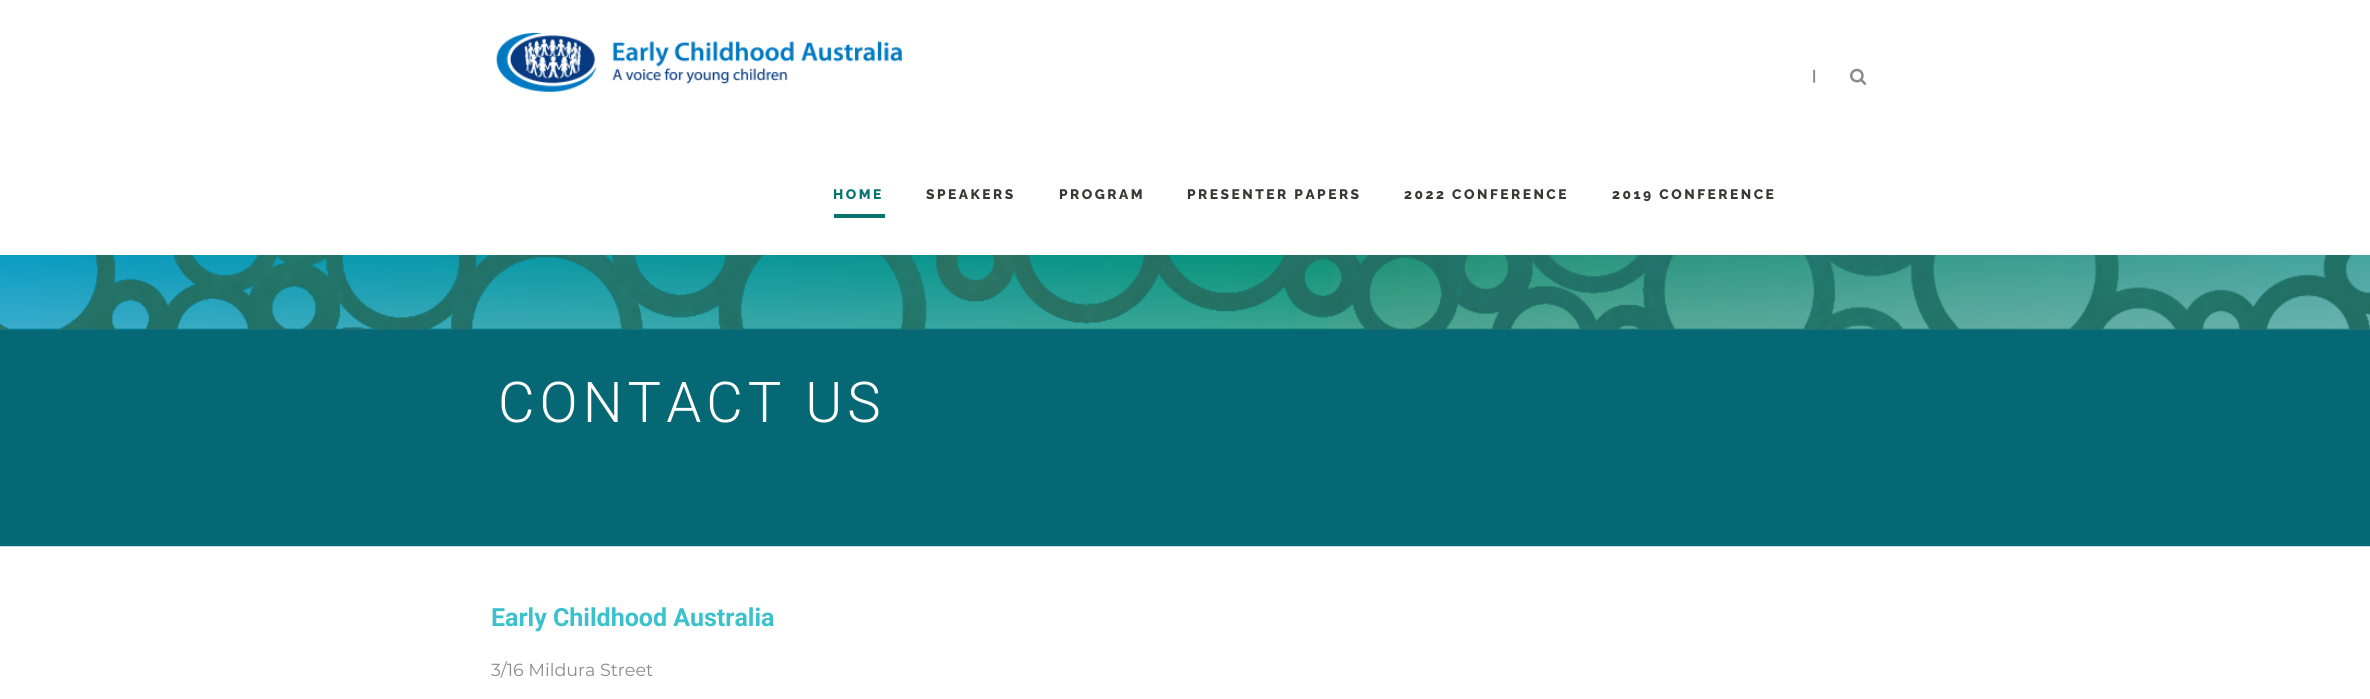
#include <cairo/cairo.h>
#include <math.h>
#include <stddef.h>

typedef struct { double x, y; const char *s; } line_t;
static cairo_t *cr;

static void rgb(unsigned color)
{
	cairo_set_source_rgb(cr, (color >> 16) / 255.0, (color >> 8 & 255) / 255.0, (color & 255) / 255.0);
}

static void tracked(double x, double y, const char *s, double letter, double word)
{
	cairo_move_to(cr, x, y);
	while (*s) {
		char ch[5] = {0};
		int n = 0;
		do ch[n++] = *s++; while ((*s & 0xC0) == 0x80);
		cairo_show_text(cr, ch);
		cairo_rel_move_to(cr, letter + word * (*ch == ' '), 0);
	}
}

static void image(const char *path, double x, double y, double w, double h)
{
	cairo_surface_t *image = cairo_image_surface_create_from_png(path);
	cairo_save(cr);
	cairo_set_source_surface(cr, image, x, y);
	cairo_rectangle(cr, x, y, w, h);
	cairo_fill(cr);
	cairo_restore(cr);
	cairo_surface_destroy(image);
}

int main(void) {
	cairo_surface_t *surface = cairo_image_surface_create(CAIRO_FORMAT_RGB24, 2370, 699);
	cr = cairo_create(surface);
	cairo_font_options_t *options = cairo_font_options_create();
	cairo_font_options_set_hint_metrics(options, CAIRO_HINT_METRICS_OFF);
	cairo_font_options_set_hint_style(options, CAIRO_HINT_STYLE_NONE);
	cairo_set_font_options(cr, options);
	cairo_set_miter_limit(cr, 4);
	rgb(0xffffff);
	cairo_paint(cr);
	image("img/1.png", 496, 32, 406, 60);
	image("img/2.png", 1850, 68, 17, 17);
	rgb(0x087472);
	cairo_rectangle(cr, 834, 214, 51, 4);
	cairo_fill(cr);
	image("img/3.png", 0, 255, 2370, 292);
	cairo_select_font_face(cr, "Montserrat", CAIRO_FONT_SLANT_NORMAL, CAIRO_FONT_WEIGHT_BOLD);
	cairo_set_font_size(cr, 13.75);
	rgb(0x8b8b8b);
	cairo_move_to(cr, 1812, 80);
	cairo_show_text(cr, "|");
	cairo_select_font_face(cr, "Raleway ExtraBold", CAIRO_FONT_SLANT_NORMAL, CAIRO_FONT_WEIGHT_NORMAL);
	rgb(0x087472);
	tracked(833, 199, "HOME", 2.5, 0);
	rgb(0x363936);
	{
		static const line_t items[] = {
			{926, 199, "SPEAKERS"},
			{1059, 199, "PROGRAM"},
			{1187, 199, "PRESENTER PAPERS"},
			{1404, 199, "2022 CONFERENCE"},
			{1612, 199, "2019 CONFERENCE"},
		};
		for (size_t i = 0; i < sizeof items / sizeof *items; i++) {
			tracked(items[i].x, items[i].y, items[i].s, 2.5, 0);
		}
	}
	cairo_select_font_face(cr, "Roboto Light", CAIRO_FONT_SLANT_NORMAL, CAIRO_FONT_WEIGHT_NORMAL);
	cairo_set_font_size(cr, 56.25);
	rgb(0xffffff);
	tracked(498, 422, "CONTACT US", 5, 0);
	cairo_select_font_face(cr, "Roboto", CAIRO_FONT_SLANT_NORMAL, CAIRO_FONT_WEIGHT_BOLD);
	cairo_set_font_size(cr, 25);
	rgb(0x3ac1cc);
	cairo_move_to(cr, 491, 626);
	cairo_show_text(cr, "Early Childhood Australia");
	cairo_select_font_face(cr, "Montserrat", CAIRO_FONT_SLANT_NORMAL, CAIRO_FONT_WEIGHT_NORMAL);
	cairo_set_font_size(cr, 17.5);
	rgb(0x8b8b8b);
	cairo_move_to(cr, 491, 676);
	cairo_show_text(cr, "3/16 Mildura Street");
	cairo_surface_write_to_png(surface, "page.png");
	cairo_font_options_destroy(options);
	cairo_destroy(cr);
	cairo_surface_destroy(surface);
	return 0;
}
